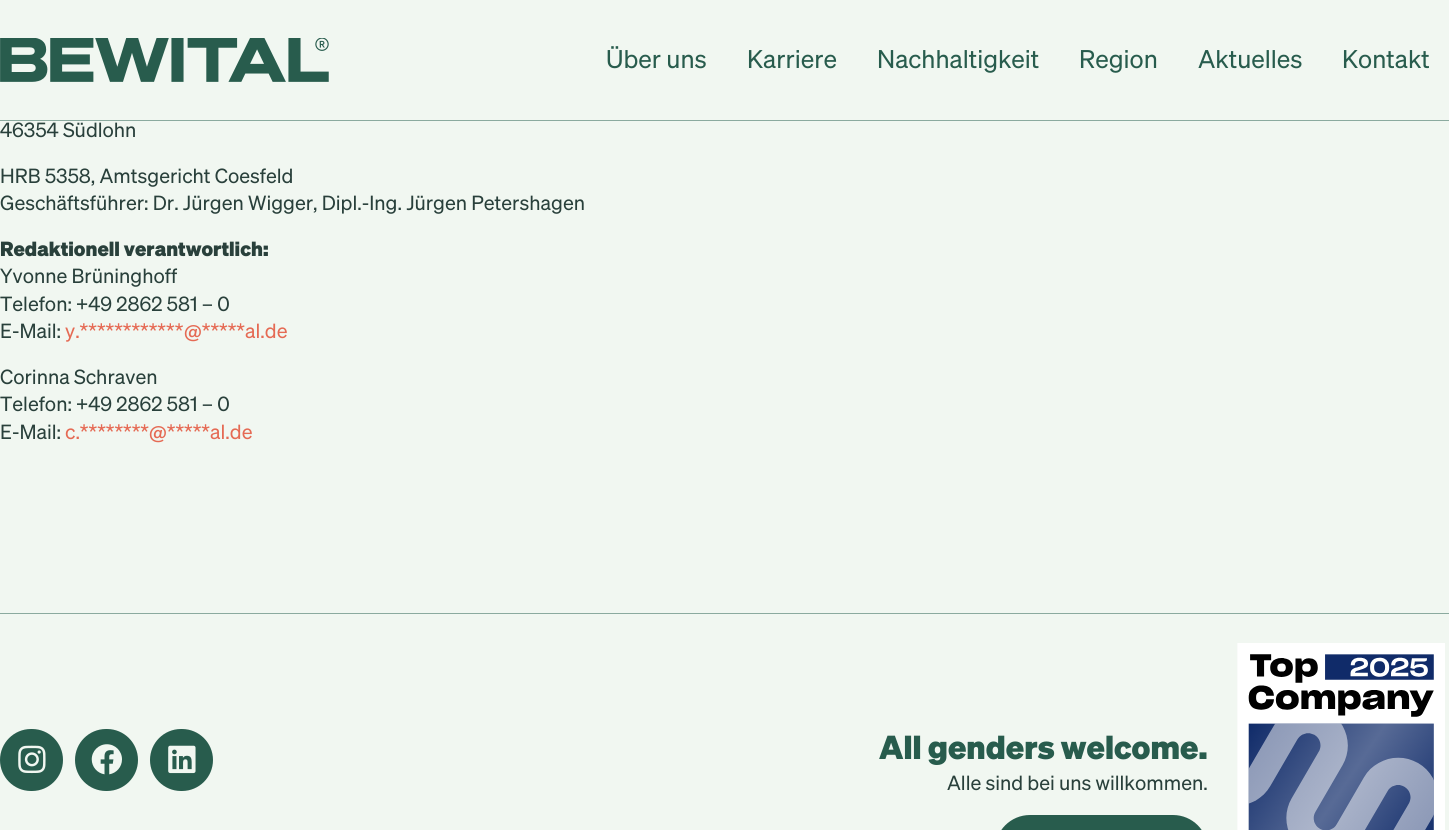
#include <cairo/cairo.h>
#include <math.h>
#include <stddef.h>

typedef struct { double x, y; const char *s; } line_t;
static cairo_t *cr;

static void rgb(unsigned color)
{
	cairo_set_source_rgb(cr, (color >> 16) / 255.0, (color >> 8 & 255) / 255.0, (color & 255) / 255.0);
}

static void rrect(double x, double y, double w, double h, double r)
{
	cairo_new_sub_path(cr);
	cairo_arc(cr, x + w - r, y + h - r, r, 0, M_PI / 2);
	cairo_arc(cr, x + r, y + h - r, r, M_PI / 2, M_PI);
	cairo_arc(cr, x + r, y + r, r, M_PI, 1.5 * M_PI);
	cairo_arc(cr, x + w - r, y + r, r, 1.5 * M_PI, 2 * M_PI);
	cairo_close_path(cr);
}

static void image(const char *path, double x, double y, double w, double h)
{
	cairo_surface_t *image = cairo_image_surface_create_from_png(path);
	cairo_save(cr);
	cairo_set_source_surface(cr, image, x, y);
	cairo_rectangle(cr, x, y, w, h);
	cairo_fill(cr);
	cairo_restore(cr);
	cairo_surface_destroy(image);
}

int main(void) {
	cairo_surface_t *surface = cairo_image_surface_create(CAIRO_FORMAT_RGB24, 1449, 830);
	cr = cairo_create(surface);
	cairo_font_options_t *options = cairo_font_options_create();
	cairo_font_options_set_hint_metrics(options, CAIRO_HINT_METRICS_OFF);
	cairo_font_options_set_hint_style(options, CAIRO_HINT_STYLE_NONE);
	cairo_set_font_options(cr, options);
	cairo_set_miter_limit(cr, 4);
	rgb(0xf1f7f1);
	cairo_paint(cr);
	rgb(0x8baa9f);
	cairo_rectangle(cr, 0, 120, 1449, 1);
	cairo_fill(cr);
	image("img/1.png", 0, 38, 329, 44);
	cairo_rectangle(cr, 0, 613, 1449, 1);
	cairo_fill(cr);
	rgb(0x285c4d);
	rrect(0, 729, 63, 62, 31);
	cairo_fill(cr);
	image("img/2.png", 18, 745, 28, 29);
	rrect(75, 729, 63, 62, 31);
	cairo_fill(cr);
	image("img/3.png", 91, 744, 31, 31);
	rrect(150, 729, 63, 62, 31);
	cairo_fill(cr);
	image("img/4.png", 168, 745, 28, 29);
	rrect(996.5, 816.5, 210, 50, 33.5);
	cairo_fill_preserve(cr);
	cairo_set_line_width(cr, 3);
	cairo_stroke(cr);
	image("img/5.png", 1237, 643, 208, 187);
	cairo_select_font_face(cr, "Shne", CAIRO_FONT_SLANT_NORMAL, CAIRO_FONT_WEIGHT_NORMAL);
	cairo_set_font_size(cr, 25);
	{
		static const line_t items[] = {
			{606, 68, "Über uns"},
			{747, 68, "Karriere"},
			{877, 68, "Nachhaltigkeit"},
			{1079, 68, "Region"},
			{1198, 68, "Aktuelles"},
			{1342, 68, "Kontakt"},
		};
		for (size_t i = 0; i < sizeof items / sizeof *items; i++) {
			cairo_move_to(cr, items[i].x, items[i].y);
			cairo_show_text(cr, items[i].s);
		}
	}
	cairo_set_font_size(cr, 20);
	rgb(0x29403b);
	{
		static const line_t items[] = {
			{0, 137, "46354 Südlohn"},
			{0, 183, "HRB 5358, Amtsgericht Coesfeld"},
			{0, 210, "Geschäftsführer: Dr. Jürgen Wigger, Dipl.-Ing. Jürgen Petershagen"},
		};
		for (size_t i = 0; i < sizeof items / sizeof *items; i++) {
			cairo_move_to(cr, items[i].x, items[i].y);
			cairo_show_text(cr, items[i].s);
		}
	}
	cairo_select_font_face(cr, "Shne ExtraBold", CAIRO_FONT_SLANT_NORMAL, CAIRO_FONT_WEIGHT_NORMAL);
	cairo_move_to(cr, 0, 256);
	cairo_show_text(cr, "Redaktionell verantwortlich:");
	cairo_select_font_face(cr, "Shne", CAIRO_FONT_SLANT_NORMAL, CAIRO_FONT_WEIGHT_NORMAL);
	{
		static const line_t items[] = {
			{0, 283, "Yvonne Brüninghoff"},
			{0, 311, "Telefon: +49 2862 581 – 0"},
			{0, 338, "E-Mail:"},
		};
		for (size_t i = 0; i < sizeof items / sizeof *items; i++) {
			cairo_move_to(cr, items[i].x, items[i].y);
			cairo_show_text(cr, items[i].s);
		}
	}
	rgb(0xe56a54);
	{
		static const line_t items[] = {
			{65, 338, "y.************"},
			{184, 338, "@*****"},
			{245, 338, "al.de"},
		};
		for (size_t i = 0; i < sizeof items / sizeof *items; i++) {
			cairo_move_to(cr, items[i].x, items[i].y);
			cairo_show_text(cr, items[i].s);
		}
	}
	rgb(0x29403b);
	{
		static const line_t items[] = {
			{0, 384, "Corinna Schraven"},
			{0, 411, "Telefon: +49 2862 581 – 0"},
			{0, 439, "E-Mail:"},
		};
		for (size_t i = 0; i < sizeof items / sizeof *items; i++) {
			cairo_move_to(cr, items[i].x, items[i].y);
			cairo_show_text(cr, items[i].s);
		}
	}
	rgb(0xe56a54);
	{
		static const line_t items[] = {
			{65, 439, "c.********"},
			{149, 439, "@*****"},
			{210, 439, "al.de"},
		};
		for (size_t i = 0; i < sizeof items / sizeof *items; i++) {
			cairo_move_to(cr, items[i].x, items[i].y);
			cairo_show_text(cr, items[i].s);
		}
	}
	cairo_select_font_face(cr, "Shne ExtraBold", CAIRO_FONT_SLANT_NORMAL, CAIRO_FONT_WEIGHT_NORMAL);
	cairo_set_font_size(cr, 32.5);
	rgb(0x285c4d);
	cairo_move_to(cr, 879, 759);
	cairo_show_text(cr, "All genders welcome.");
	cairo_select_font_face(cr, "Shne", CAIRO_FONT_SLANT_NORMAL, CAIRO_FONT_WEIGHT_NORMAL);
	cairo_set_font_size(cr, 20);
	rgb(0x29403b);
	cairo_move_to(cr, 947, 790);
	cairo_show_text(cr, "Alle sind bei uns willkommen.");
	cairo_surface_write_to_png(surface, "page.png");
	cairo_font_options_destroy(options);
	cairo_destroy(cr);
	cairo_surface_destroy(surface);
	return 0;
}
